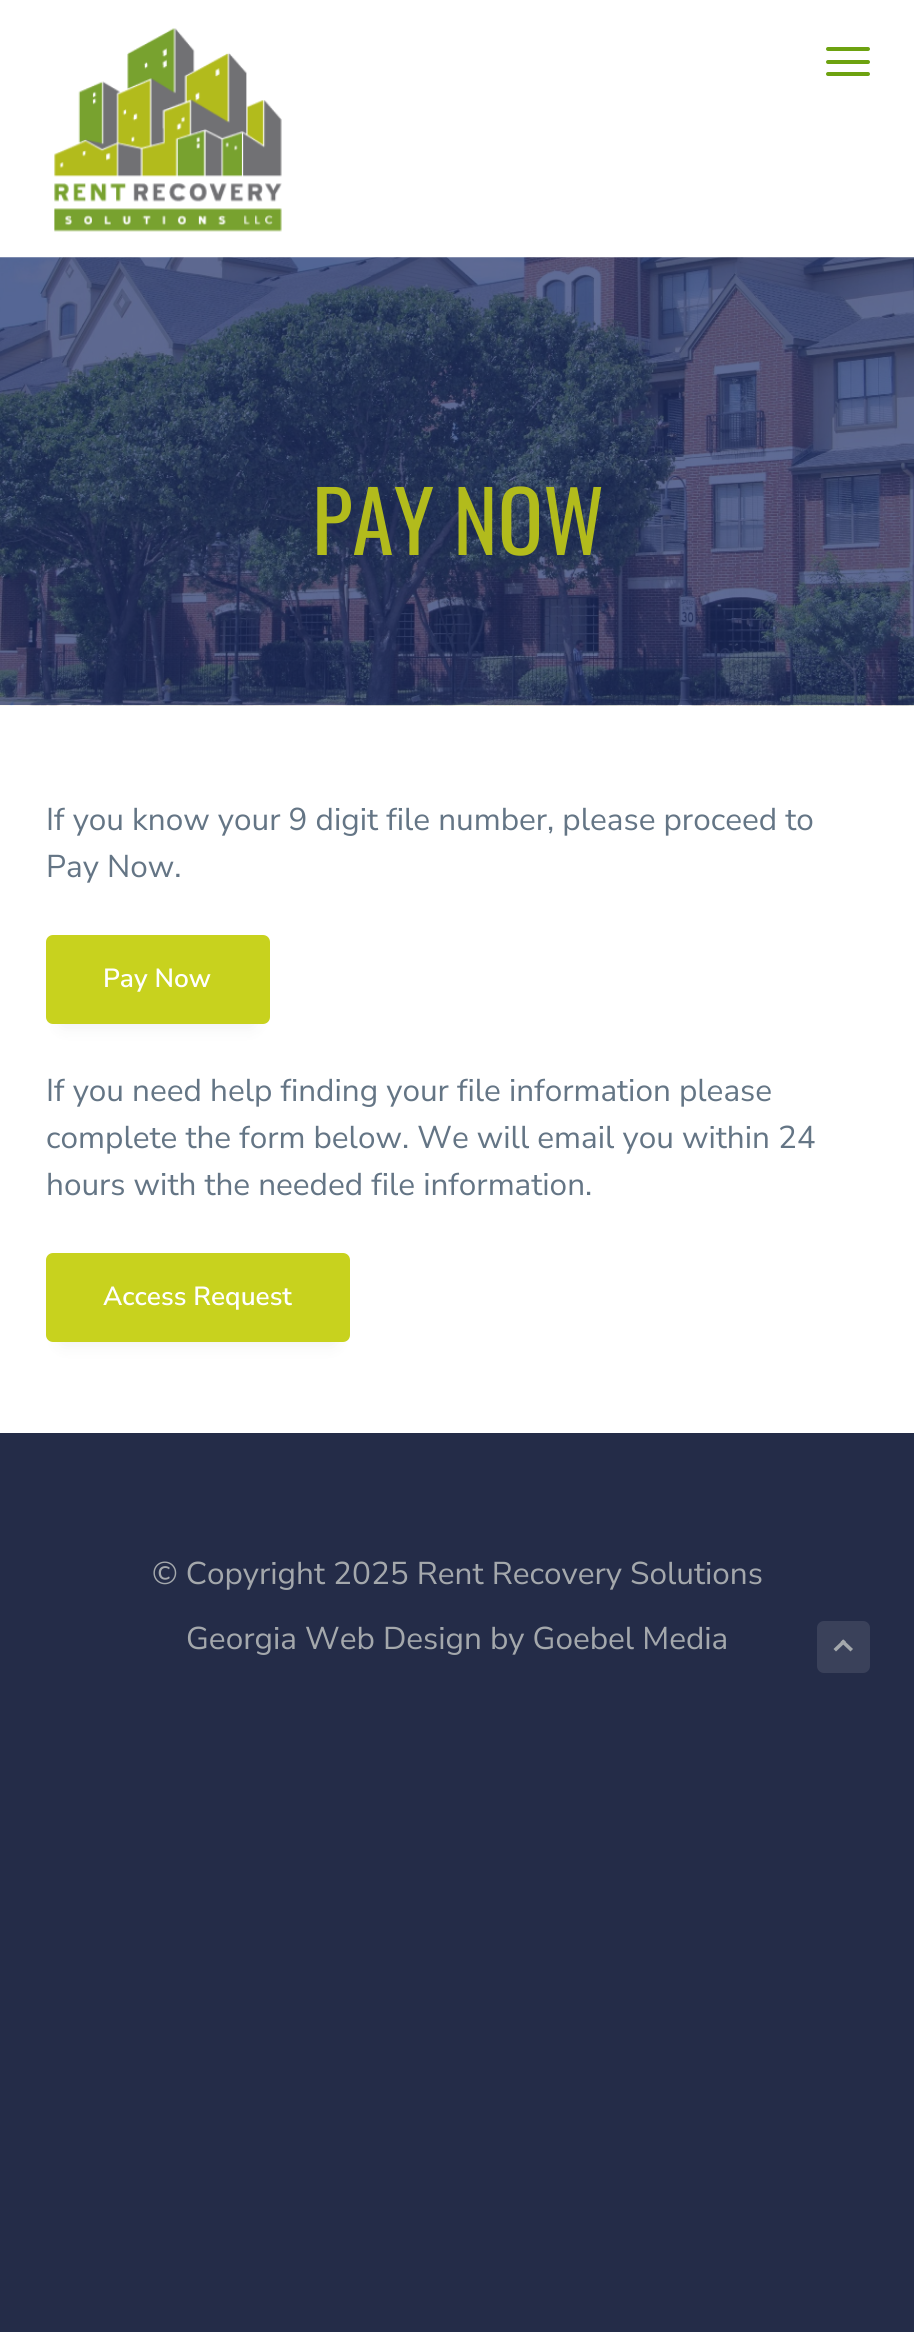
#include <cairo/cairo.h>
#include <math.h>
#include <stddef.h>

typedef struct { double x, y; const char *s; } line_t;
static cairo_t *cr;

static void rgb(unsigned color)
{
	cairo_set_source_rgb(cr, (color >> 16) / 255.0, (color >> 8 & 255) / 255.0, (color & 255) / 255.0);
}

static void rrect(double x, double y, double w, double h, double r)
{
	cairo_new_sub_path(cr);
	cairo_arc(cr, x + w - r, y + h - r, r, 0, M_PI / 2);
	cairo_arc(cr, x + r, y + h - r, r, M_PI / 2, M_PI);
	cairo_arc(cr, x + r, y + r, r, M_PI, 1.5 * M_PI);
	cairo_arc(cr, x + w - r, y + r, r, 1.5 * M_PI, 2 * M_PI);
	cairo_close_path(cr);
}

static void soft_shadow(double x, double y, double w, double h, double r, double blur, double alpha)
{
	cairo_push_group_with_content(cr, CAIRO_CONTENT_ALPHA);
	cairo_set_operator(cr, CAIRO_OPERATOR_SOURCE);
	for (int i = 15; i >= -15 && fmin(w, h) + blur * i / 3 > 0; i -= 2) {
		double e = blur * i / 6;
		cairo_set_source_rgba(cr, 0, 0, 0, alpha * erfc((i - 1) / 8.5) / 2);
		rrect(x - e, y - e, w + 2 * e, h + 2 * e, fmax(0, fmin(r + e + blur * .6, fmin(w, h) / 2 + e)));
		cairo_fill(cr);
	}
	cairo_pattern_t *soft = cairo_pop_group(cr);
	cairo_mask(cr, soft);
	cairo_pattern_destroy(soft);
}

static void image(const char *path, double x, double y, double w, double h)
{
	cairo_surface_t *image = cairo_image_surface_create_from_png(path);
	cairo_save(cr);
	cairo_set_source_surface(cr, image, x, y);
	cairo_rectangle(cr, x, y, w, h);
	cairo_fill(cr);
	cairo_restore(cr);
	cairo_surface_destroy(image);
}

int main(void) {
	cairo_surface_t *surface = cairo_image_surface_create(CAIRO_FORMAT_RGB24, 914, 2332);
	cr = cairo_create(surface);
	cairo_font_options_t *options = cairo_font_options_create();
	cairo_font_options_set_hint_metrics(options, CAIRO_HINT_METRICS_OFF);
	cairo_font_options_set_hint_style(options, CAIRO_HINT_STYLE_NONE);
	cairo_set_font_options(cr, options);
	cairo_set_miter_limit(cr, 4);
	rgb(0x242c48);
	cairo_paint(cr);
	rgb(0xffffff);
	cairo_rectangle(cr, 0, 0, 914, 1433);
	cairo_fill(cr);
	image("img/1.png", 54, 28, 228, 204);
	rgb(0x6da210);
	rrect(826, 60, 44, 4, 2);
	cairo_fill(cr);
	rrect(826, 47, 44, 4, 2);
	cairo_fill(cr);
	rrect(826, 72, 44, 4, 2);
	cairo_fill(cr);
	image("img/2.png", 0, 257, 914, 449);
	rgb(0x232c39);
	soft_shadow(63, 970, 189, 54, 0, 9, 0.1);
	rgb(0xc8d21e);
	rrect(46, 935, 224, 89, 7);
	cairo_fill(cr);
	rgb(0x232c39);
	soft_shadow(63, 1288, 270, 54, 0, 9, 0.1);
	rgb(0xc8d21e);
	rrect(46, 1253, 304, 89, 7);
	cairo_fill(cr);
	rgb(0x3a415a);
	rrect(817, 1621, 53, 52, 7);
	cairo_fill(cr);
	rgb(0xa4a8ac);
	cairo_new_path(cr);
	cairo_move_to(cr, 833.5, 1649);
	cairo_line_to(cr, 843.5, 1639.5);
	cairo_line_to(cr, 846, 1642);
	cairo_line_to(cr, 836, 1651.5);
	cairo_close_path(cr);
	cairo_fill(cr);
	cairo_new_path(cr);
	cairo_move_to(cr, 843, 1639.5);
	cairo_line_to(cr, 853, 1649);
	cairo_line_to(cr, 850.5, 1651.5);
	cairo_line_to(cr, 840.5, 1642);
	cairo_close_path(cr);
	cairo_fill(cr);
	cairo_select_font_face(cr, "Oswald", CAIRO_FONT_SLANT_NORMAL, CAIRO_FONT_WEIGHT_NORMAL);
	cairo_set_font_size(cr, 84);
	rgb(0xb2bb1c);
	cairo_move_to(cr, 312, 555);
	cairo_show_text(cr, "PAY NOW");
	cairo_select_font_face(cr, "Nunito Sans", CAIRO_FONT_SLANT_NORMAL, CAIRO_FONT_WEIGHT_NORMAL);
	cairo_set_font_size(cr, 31.5);
	rgb(0x647585);
	cairo_move_to(cr, 46, 830);
	cairo_show_text(cr, "If you know your 9 digit file number, please proceed to");
	cairo_move_to(cr, 46, 877);
	cairo_show_text(cr, "Pay Now.");
	cairo_select_font_face(cr, "Nunito Sans SemiBold", CAIRO_FONT_SLANT_NORMAL, CAIRO_FONT_WEIGHT_NORMAL);
	cairo_set_font_size(cr, 26.25);
	rgb(0xffffff);
	cairo_move_to(cr, 103, 987);
	cairo_show_text(cr, "Pay Now");
	cairo_select_font_face(cr, "Nunito Sans", CAIRO_FONT_SLANT_NORMAL, CAIRO_FONT_WEIGHT_NORMAL);
	cairo_set_font_size(cr, 31.5);
	rgb(0x647585);
	{
		static const line_t items[] = {
			{46, 1101, "If you need help finding your file information please"},
			{46, 1148, "complete the form below. We will email you within 24"},
			{46, 1195, "hours with the needed file information."},
		};
		for (size_t i = 0; i < sizeof items / sizeof *items; i++) {
			cairo_move_to(cr, items[i].x, items[i].y);
			cairo_show_text(cr, items[i].s);
		}
	}
	cairo_select_font_face(cr, "Nunito Sans SemiBold", CAIRO_FONT_SLANT_NORMAL, CAIRO_FONT_WEIGHT_NORMAL);
	cairo_set_font_size(cr, 26.25);
	rgb(0xffffff);
	cairo_move_to(cr, 103, 1305);
	cairo_show_text(cr, "Access Request");
	cairo_select_font_face(cr, "Nunito Sans", CAIRO_FONT_SLANT_NORMAL, CAIRO_FONT_WEIGHT_NORMAL);
	cairo_set_font_size(cr, 31.5);
	rgb(0xa4a8ac);
	cairo_move_to(cr, 152, 1584);
	cairo_show_text(cr, "© Copyright 2025 Rent Recovery Solutions");
	cairo_move_to(cr, 186, 1649);
	cairo_show_text(cr, "Georgia Web Design by Goebel Media");
	cairo_surface_write_to_png(surface, "page.png");
	cairo_font_options_destroy(options);
	cairo_destroy(cr);
	cairo_surface_destroy(surface);
	return 0;
}
